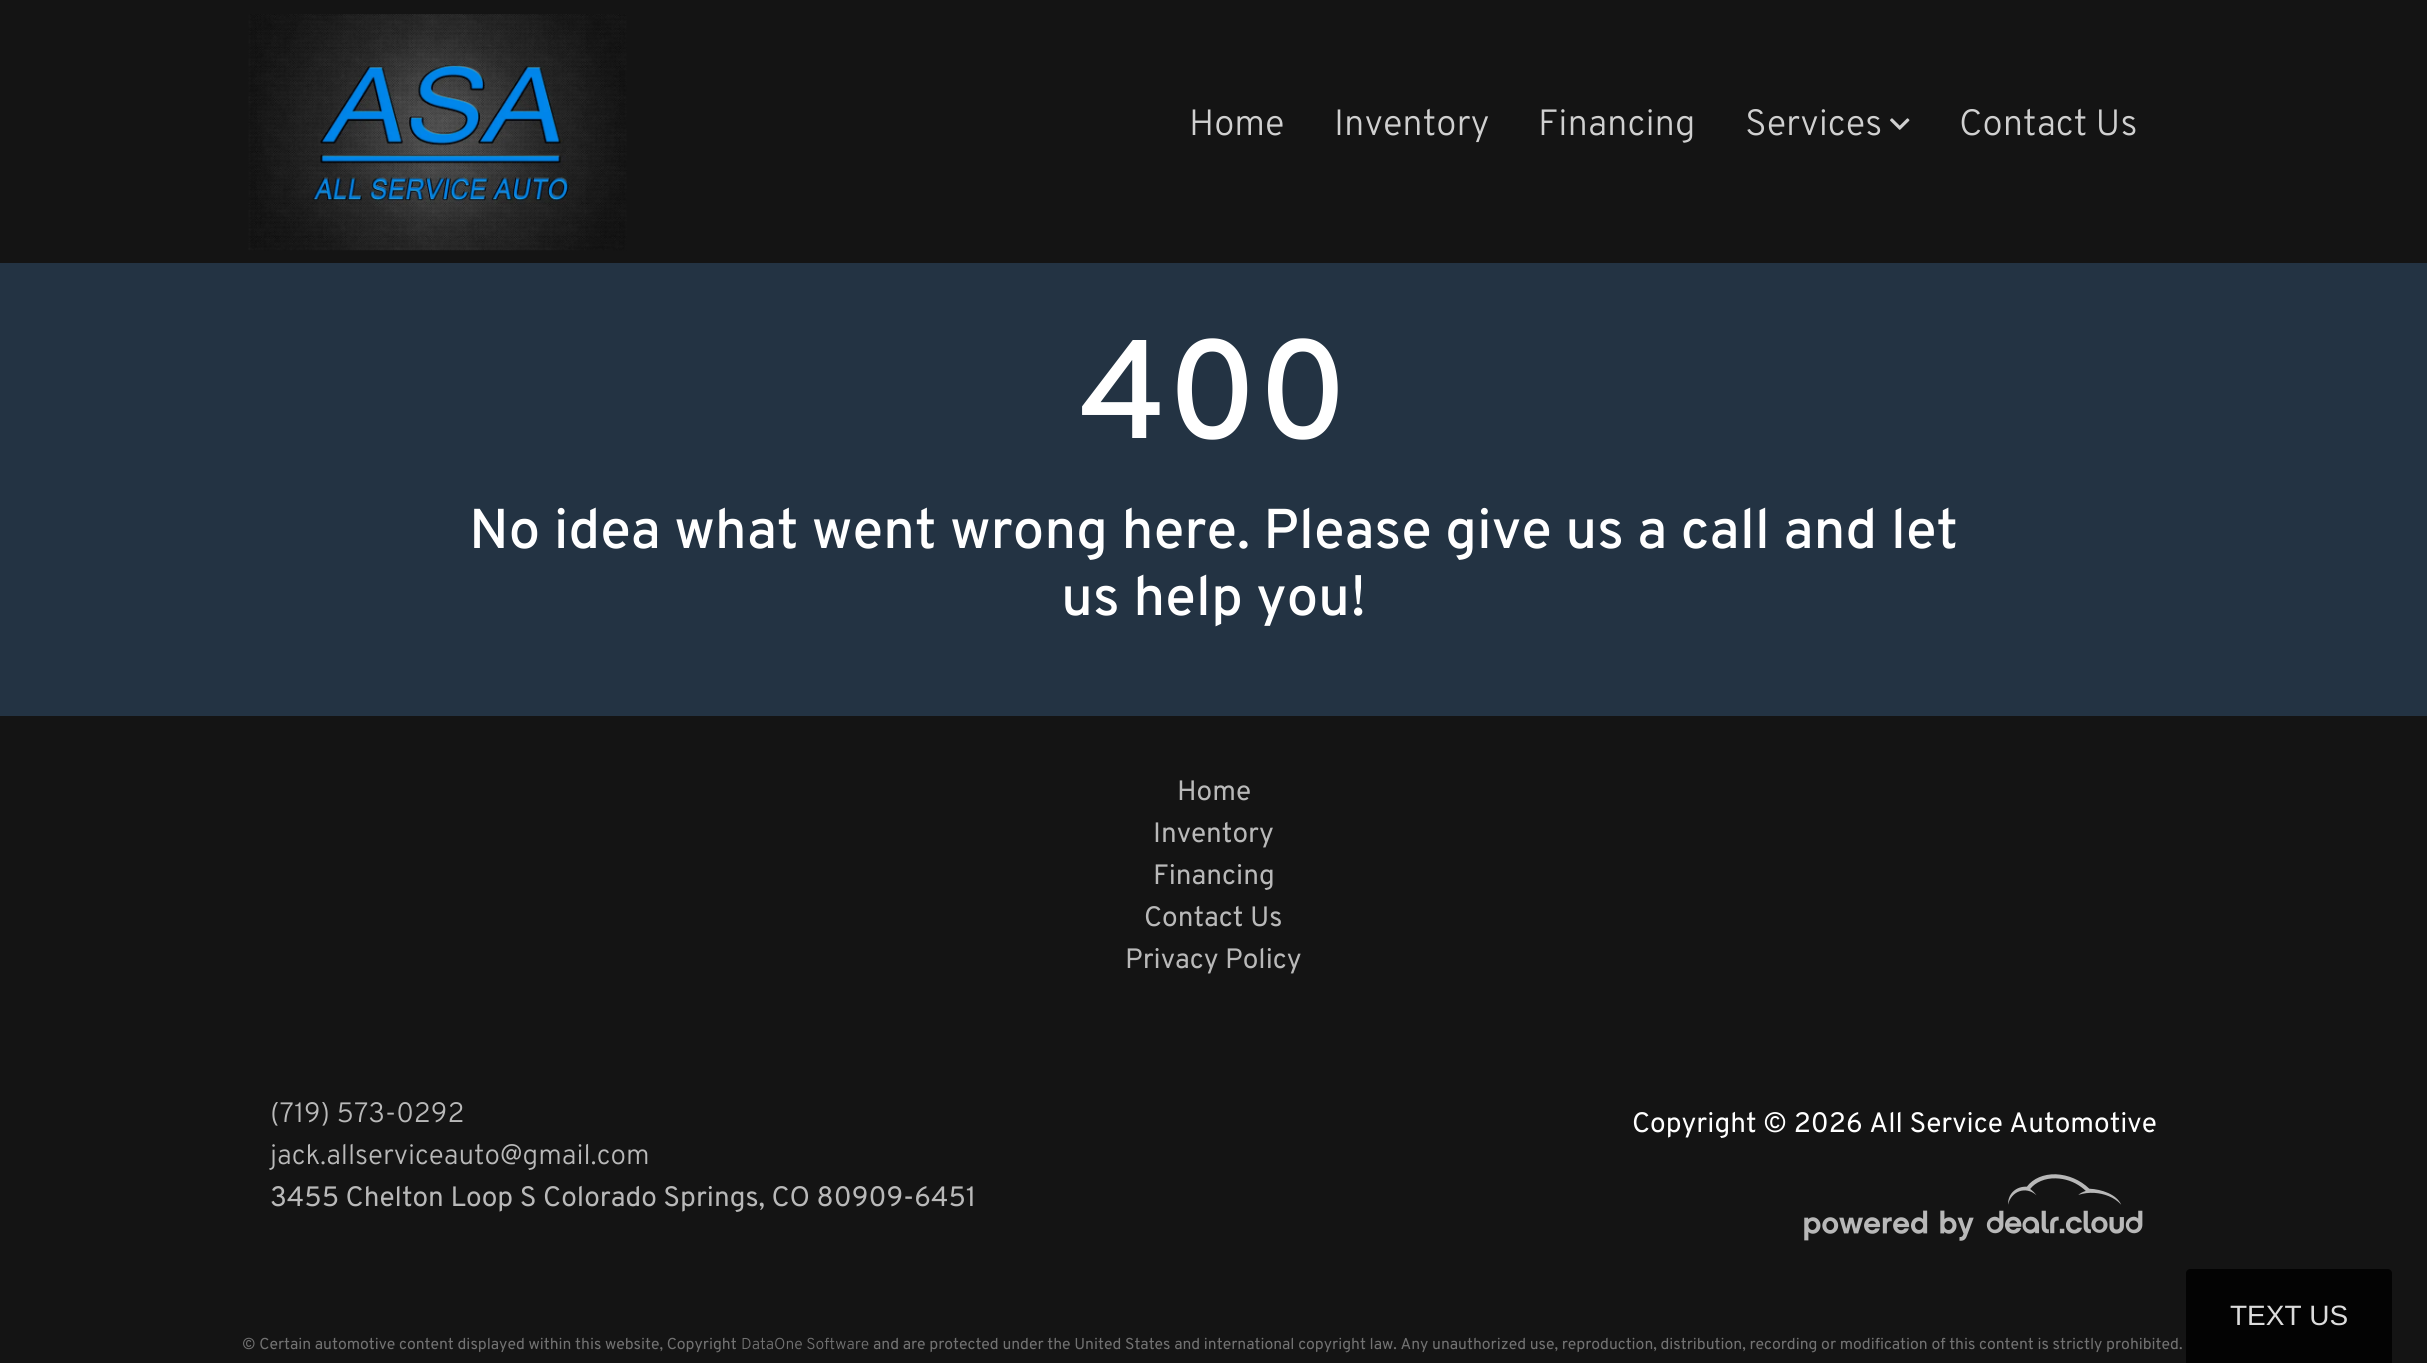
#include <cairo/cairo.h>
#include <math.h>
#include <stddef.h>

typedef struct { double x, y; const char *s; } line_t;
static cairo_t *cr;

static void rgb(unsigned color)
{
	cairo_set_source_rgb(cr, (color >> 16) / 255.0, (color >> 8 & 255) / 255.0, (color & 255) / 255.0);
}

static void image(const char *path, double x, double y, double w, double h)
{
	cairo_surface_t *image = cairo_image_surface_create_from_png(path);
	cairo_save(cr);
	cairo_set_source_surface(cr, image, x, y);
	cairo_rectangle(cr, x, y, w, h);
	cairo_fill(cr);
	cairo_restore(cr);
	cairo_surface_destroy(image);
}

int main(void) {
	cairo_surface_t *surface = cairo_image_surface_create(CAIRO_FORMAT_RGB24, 2427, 1363);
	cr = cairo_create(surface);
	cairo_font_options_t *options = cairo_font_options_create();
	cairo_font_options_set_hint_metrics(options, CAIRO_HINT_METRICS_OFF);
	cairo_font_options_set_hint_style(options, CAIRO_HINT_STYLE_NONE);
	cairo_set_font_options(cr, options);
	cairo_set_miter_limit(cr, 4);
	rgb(0x233343);
	cairo_paint(cr);
	rgb(0x141414);
	cairo_rectangle(cr, 0, 0, 2427, 263);
	cairo_fill(cr);
	image("img/1.png", 248, 14, 379, 237);
	image("img/2.png", 1890, 118, 20, 12);
	cairo_rectangle(cr, 0, 716, 2427, 647);
	cairo_fill(cr);
	image("img/3.png", 1804, 1174, 339, 67);
	rgb(0x030303);
	cairo_new_path(cr);
	cairo_move_to(cr, 2190, 1269);
	cairo_line_to(cr, 2388, 1269);
	cairo_curve_to(cr, 2390, 1269, 2392, 1271, 2392, 1273);
	cairo_line_to(cr, 2392, 1363);
	cairo_line_to(cr, 2186, 1363);
	cairo_line_to(cr, 2186, 1273);
	cairo_curve_to(cr, 2186, 1271, 2188, 1269, 2190, 1269);
	cairo_close_path(cr);
	cairo_fill(cr);
	cairo_select_font_face(cr, "Overpass Light", CAIRO_FONT_SLANT_NORMAL, CAIRO_FONT_WEIGHT_NORMAL);
	cairo_set_font_size(cr, 36.5);
	rgb(0xd0d0d0);
	{
		static const line_t items[] = {
			{1189, 135, "Home"},
			{1334, 135, "Inventory"},
			{1538, 135, "Financing"},
			{1745, 135, "Services"},
			{1959, 135, "Contact Us"},
		};
		for (size_t i = 0; i < sizeof items / sizeof *items; i++) {
			cairo_move_to(cr, items[i].x, items[i].y);
			cairo_show_text(cr, items[i].s);
		}
	}
	cairo_select_font_face(cr, "Overpass Medium", CAIRO_FONT_SLANT_NORMAL, CAIRO_FONT_WEIGHT_NORMAL);
	cairo_set_font_size(cr, 140);
	rgb(0xffffff);
	cairo_move_to(cr, 1079, 438);
	cairo_show_text(cr, "400");
	cairo_set_font_size(cr, 56);
	cairo_move_to(cr, 469, 548);
	cairo_show_text(cr, "No idea what went wrong here. Please give us a call and let");
	cairo_move_to(cr, 1061, 615);
	cairo_show_text(cr, "us help you!");
	cairo_select_font_face(cr, "Overpass", CAIRO_FONT_SLANT_NORMAL, CAIRO_FONT_WEIGHT_NORMAL);
	cairo_set_font_size(cr, 28);
	rgb(0xb9b9b9);
	{
		static const line_t items[] = {
			{1177, 800, "Home"},
			{1153, 842, "Inventory"},
			{1153, 884, "Financing"},
			{1144, 926, "Contact Us"},
			{1125, 968, "Privacy Policy"},
		};
		for (size_t i = 0; i < sizeof items / sizeof *items; i++) {
			cairo_move_to(cr, items[i].x, items[i].y);
			cairo_show_text(cr, items[i].s);
		}
	}
	cairo_select_font_face(cr, "Overpass Light", CAIRO_FONT_SLANT_NORMAL, CAIRO_FONT_WEIGHT_NORMAL);
	cairo_move_to(cr, 270, 1122);
	cairo_show_text(cr, "(719) 573-0292");
	cairo_move_to(cr, 270, 1164);
	cairo_show_text(cr, "jack.allserviceauto@gmail.com");
	cairo_select_font_face(cr, "Overpass", CAIRO_FONT_SLANT_NORMAL, CAIRO_FONT_WEIGHT_NORMAL);
	cairo_move_to(cr, 270, 1206);
	cairo_show_text(cr, "3455 Chelton Loop S Colorado Springs, CO 80909-6451");
	rgb(0xffffff);
	cairo_move_to(cr, 1632, 1132);
	cairo_show_text(cr, "Copyright © 2026 All Service Automotive");
	cairo_set_font_size(cr, 15.75);
	rgb(0x727272);
	cairo_move_to(cr, 242, 1349);
	cairo_show_text(cr, "© Certain automotive content displayed within this website, Copyright");
	cairo_select_font_face(cr, "Overpass Light", CAIRO_FONT_SLANT_NORMAL, CAIRO_FONT_WEIGHT_NORMAL);
	cairo_move_to(cr, 741, 1349);
	cairo_show_text(cr, "DataOne Software");
	cairo_select_font_face(cr, "Overpass", CAIRO_FONT_SLANT_NORMAL, CAIRO_FONT_WEIGHT_NORMAL);
	cairo_move_to(cr, 873, 1349);
	cairo_show_text(cr, "and are protected under the United States and international copyright law. Any unauthorized use, reproduction, distribution, recording or modification of this content is strictly prohibited.");
	cairo_select_font_face(cr, "Liberation Sans", CAIRO_FONT_SLANT_NORMAL, CAIRO_FONT_WEIGHT_NORMAL);
	cairo_set_font_size(cr, 28);
	rgb(0xdcdcdc);
	cairo_move_to(cr, 2230, 1325);
	cairo_show_text(cr, "TEXT US");
	cairo_surface_write_to_png(surface, "page.png");
	cairo_font_options_destroy(options);
	cairo_destroy(cr);
	cairo_surface_destroy(surface);
	return 0;
}
